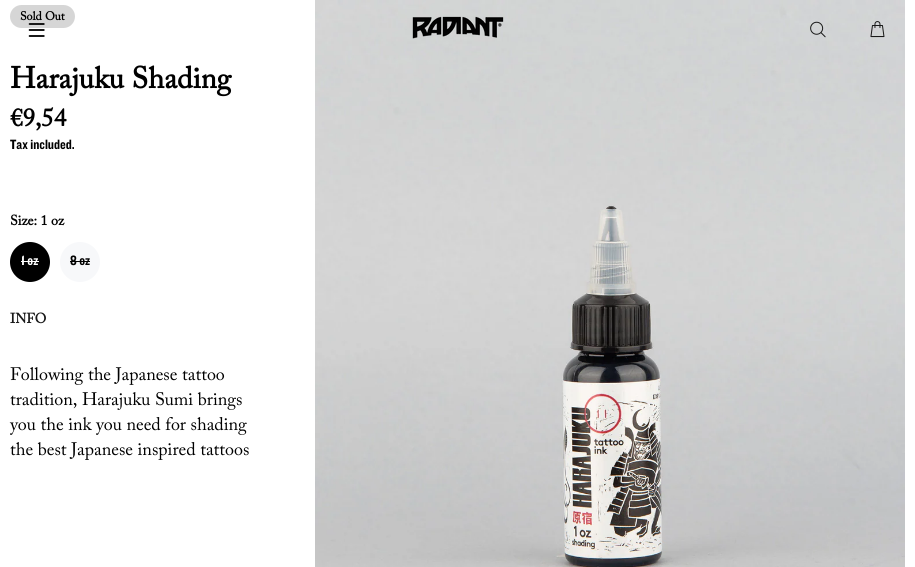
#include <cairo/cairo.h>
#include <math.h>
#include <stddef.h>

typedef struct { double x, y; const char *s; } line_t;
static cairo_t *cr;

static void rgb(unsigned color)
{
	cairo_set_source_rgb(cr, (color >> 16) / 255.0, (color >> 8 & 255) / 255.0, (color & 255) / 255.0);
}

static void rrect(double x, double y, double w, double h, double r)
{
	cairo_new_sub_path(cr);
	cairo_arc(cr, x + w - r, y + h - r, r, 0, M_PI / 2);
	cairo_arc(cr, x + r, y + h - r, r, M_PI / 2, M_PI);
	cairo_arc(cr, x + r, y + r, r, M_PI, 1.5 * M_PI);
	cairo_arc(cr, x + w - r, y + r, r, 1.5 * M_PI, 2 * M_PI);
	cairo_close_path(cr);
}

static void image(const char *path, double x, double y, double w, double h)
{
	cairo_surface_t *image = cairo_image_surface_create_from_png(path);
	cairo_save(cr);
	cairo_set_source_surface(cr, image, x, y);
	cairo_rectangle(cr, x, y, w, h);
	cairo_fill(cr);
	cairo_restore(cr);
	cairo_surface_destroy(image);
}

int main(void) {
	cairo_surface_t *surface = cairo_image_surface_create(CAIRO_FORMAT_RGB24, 915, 567);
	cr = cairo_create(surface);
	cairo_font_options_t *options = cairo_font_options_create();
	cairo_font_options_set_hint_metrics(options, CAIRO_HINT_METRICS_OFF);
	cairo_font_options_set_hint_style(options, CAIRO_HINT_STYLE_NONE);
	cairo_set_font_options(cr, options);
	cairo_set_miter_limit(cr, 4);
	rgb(0xffffff);
	cairo_paint(cr);
	rgb(0xd6d6d6);
	rrect(10, 5, 65, 23, 11.5);
	cairo_fill(cr);
	rgb(0x000000);
	cairo_arc(cr, 30, 262, 20, 0, 2 * M_PI);
	cairo_fill(cr);
	rgb(0xffffff);
	cairo_rectangle(cr, 21, 261, 18, 1);
	cairo_fill(cr);
	rgb(0xf7f8fa);
	cairo_arc(cr, 80, 262, 20, 0, 2 * M_PI);
	cairo_fill(cr);
	rgb(0x000000);
	cairo_rectangle(cr, 70, 261, 20, 1);
	cairo_fill(cr);
	image("img/1.png", 315, 0, 590, 567);
	image("img/2.png", 28, 23, 17, 14);
	image("img/3.png", 412, 16, 92, 23);
	image("img/4.png", 810, 21, 16, 17);
	image("img/5.png", 870, 21, 15, 17);
	cairo_select_font_face(cr, "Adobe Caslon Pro", CAIRO_FONT_SLANT_NORMAL, CAIRO_FONT_WEIGHT_BOLD);
	cairo_set_font_size(cr, 12);
	cairo_move_to(cr, 20, 20);
	cairo_show_text(cr, "Sold Out");
	cairo_set_font_size(cr, 30);
	cairo_move_to(cr, 10, 88);
	cairo_show_text(cr, "Harajuku Shading");
	cairo_set_font_size(cr, 25);
	cairo_move_to(cr, 10, 126);
	cairo_show_text(cr, "€9,54");
	cairo_select_font_face(cr, "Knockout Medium", CAIRO_FONT_SLANT_NORMAL, CAIRO_FONT_WEIGHT_NORMAL);
	cairo_set_font_size(cr, 14);
	cairo_move_to(cr, 10, 149);
	cairo_show_text(cr, "Tax included.");
	cairo_select_font_face(cr, "Adobe Caslon Pro", CAIRO_FONT_SLANT_NORMAL, CAIRO_FONT_WEIGHT_BOLD);
	cairo_move_to(cr, 10, 225);
	cairo_show_text(cr, "Size: 1 oz");
	cairo_select_font_face(cr, "Knockout Medium", CAIRO_FONT_SLANT_NORMAL, CAIRO_FONT_WEIGHT_NORMAL);
	rgb(0xffffff);
	cairo_move_to(cr, 21, 265);
	cairo_show_text(cr, "1 oz");
	rgb(0x000000);
	cairo_move_to(cr, 70, 265);
	cairo_show_text(cr, "8 oz");
	cairo_select_font_face(cr, "Adobe Caslon Pro", CAIRO_FONT_SLANT_NORMAL, CAIRO_FONT_WEIGHT_BOLD);
	rgb(0x191919);
	cairo_move_to(cr, 10, 323);
	cairo_show_text(cr, "INFO");
	cairo_select_font_face(cr, "Adobe Caslon Pro", CAIRO_FONT_SLANT_NORMAL, CAIRO_FONT_WEIGHT_NORMAL);
	cairo_set_font_size(cr, 18);
	rgb(0x000000);
	{
		static const line_t items[] = {
			{10, 380, "Following the Japanese tattoo"},
			{10, 405, "tradition, Harajuku Sumi brings"},
			{10, 430, "you the ink you need for shading"},
			{10, 455, "the best Japanese inspired tattoos"},
		};
		for (size_t i = 0; i < sizeof items / sizeof *items; i++) {
			cairo_move_to(cr, items[i].x, items[i].y);
			cairo_show_text(cr, items[i].s);
		}
	}
	cairo_surface_write_to_png(surface, "page.png");
	cairo_font_options_destroy(options);
	cairo_destroy(cr);
	cairo_surface_destroy(surface);
	return 0;
}
